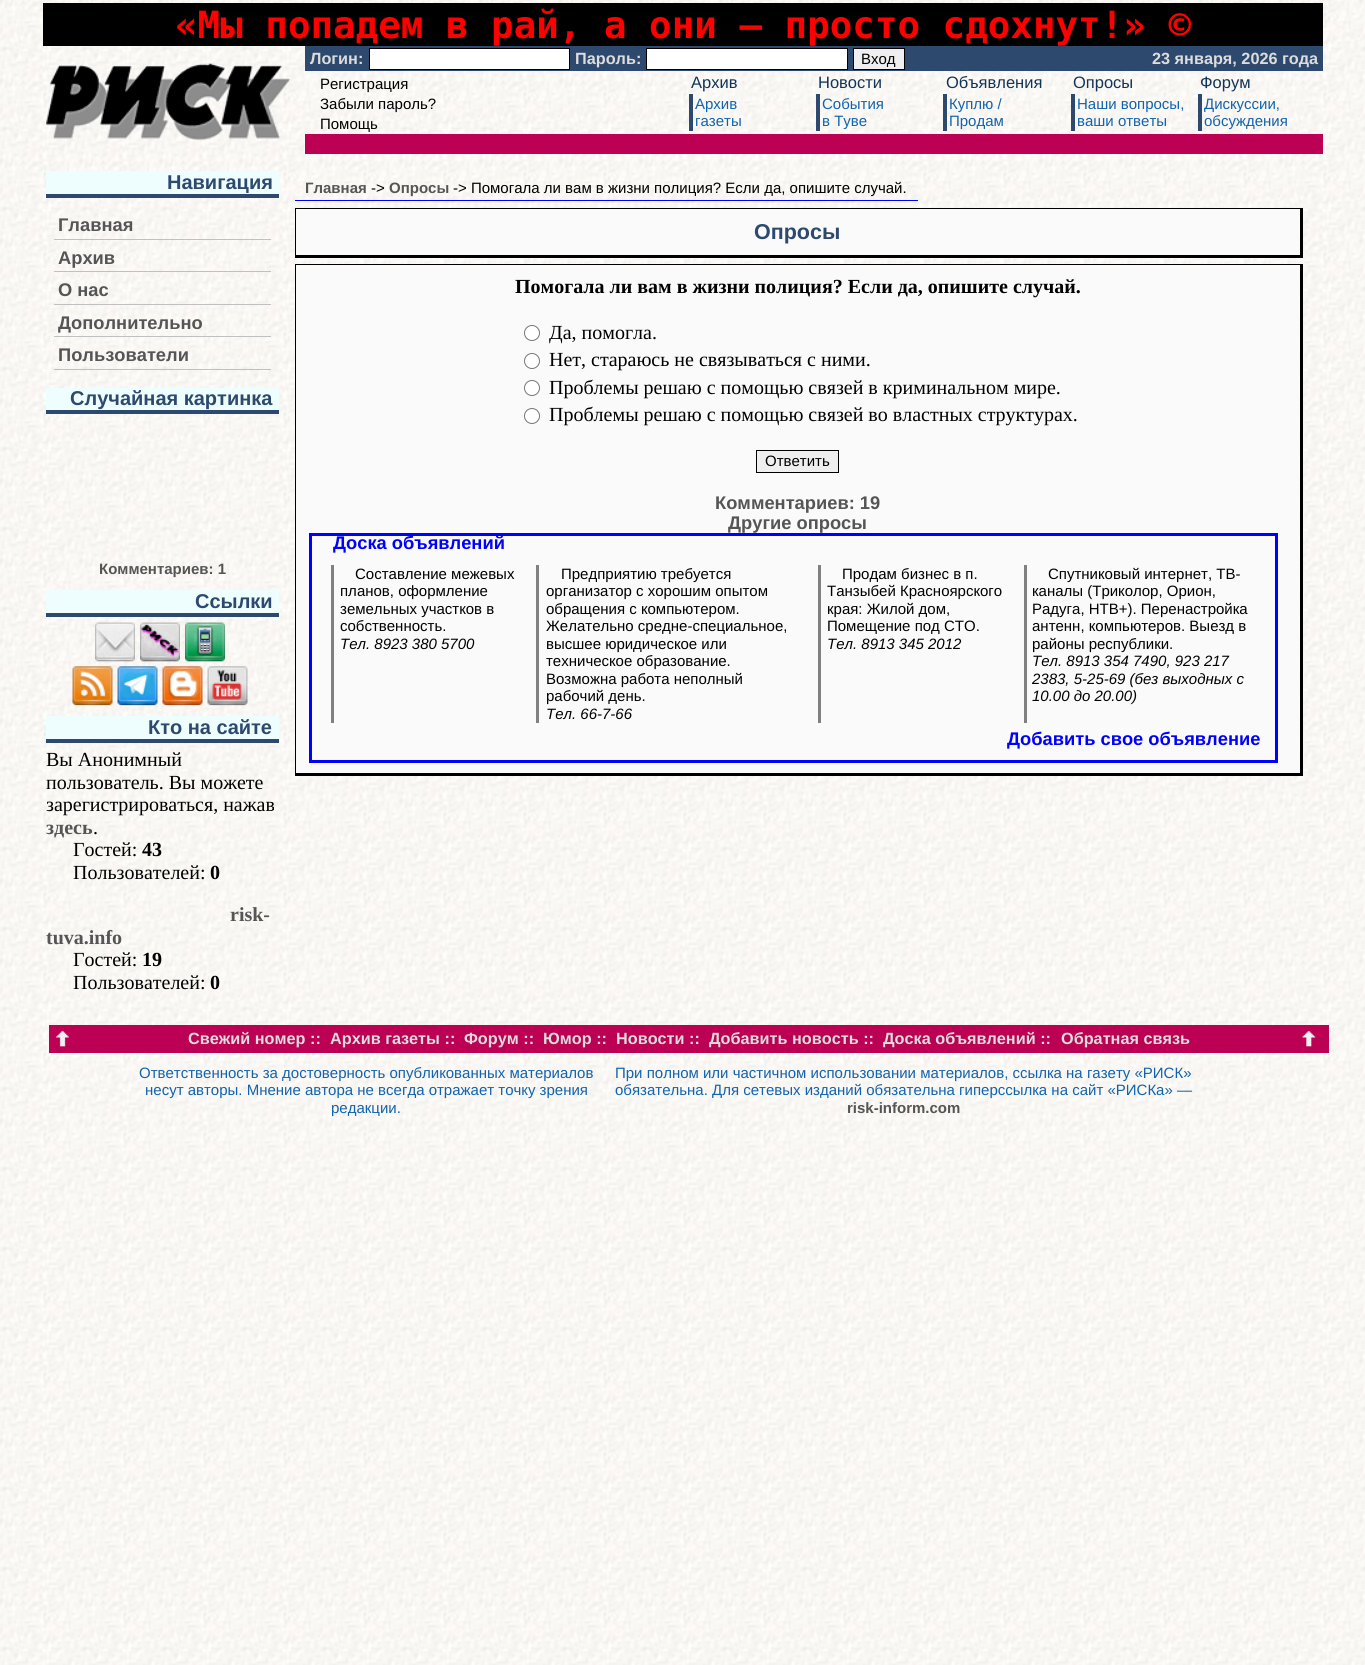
#include <cairo/cairo.h>
#include <math.h>
#include <stddef.h>

typedef struct { double x, y; const char *s; } line_t;
typedef struct { double x, y, w, h; unsigned color; } box_t;
static cairo_t *cr;

static void rgb(unsigned color)
{
	cairo_set_source_rgb(cr, (color >> 16) / 255.0, (color >> 8 & 255) / 255.0, (color & 255) / 255.0);
}

static void image(const char *path, double x, double y, double w, double h)
{
	cairo_surface_t *image = cairo_image_surface_create_from_png(path);
	cairo_save(cr);
	cairo_set_source_surface(cr, image, x, y);
	cairo_rectangle(cr, x, y, w, h);
	cairo_fill(cr);
	cairo_restore(cr);
	cairo_surface_destroy(image);
}

int main(void) {
	cairo_surface_t *surface = cairo_image_surface_create(CAIRO_FORMAT_RGB24, 1365, 1665);
	cr = cairo_create(surface);
	cairo_font_options_t *options = cairo_font_options_create();
	cairo_font_options_set_hint_metrics(options, CAIRO_HINT_METRICS_OFF);
	cairo_font_options_set_hint_style(options, CAIRO_HINT_STYLE_NONE);
	cairo_set_font_options(cr, options);
	cairo_set_miter_limit(cr, 4);
	rgb(0xffffff);
	cairo_paint(cr);
	image("img/1.png", 0, 0, 1365, 1665);
	image("img/2.png", 43, 46, 1280, 1617);
	rgb(0x000000);
	cairo_rectangle(cr, 43, 3, 1280, 43);
	cairo_fill(cr);
	image("img/3.png", 45, 61, 246, 79);
	rgb(0x2d496e);
	cairo_rectangle(cr, 305, 46, 1018, 25);
	cairo_fill(cr);
	rgb(0xffffff);
	cairo_rectangle(cr, 369.5, 48.5, 200, 21);
	cairo_fill_preserve(cr);
	rgb(0x000000);
	cairo_set_line_width(cr, 1);
	cairo_stroke(cr);
	rgb(0xffffff);
	cairo_rectangle(cr, 646.5, 48.5, 201, 21);
	cairo_fill_preserve(cr);
	rgb(0x000000);
	cairo_stroke(cr);
	rgb(0xefefef);
	cairo_rectangle(cr, 853.5, 48.5, 51, 21);
	cairo_fill_preserve(cr);
	rgb(0x000000);
	cairo_stroke(cr);
	{
		static const box_t items[] = {
			{689, 94, 4, 37, 0x2d496e},
			{816, 94, 4, 37, 0x2d496e},
			{943, 94, 4, 37, 0x2d496e},
			{1071, 94, 4, 37, 0x2d496e},
			{1198, 94, 4, 37, 0x2d496e},
			{305, 134, 1018, 20, 0xbc0154},
			{46, 171, 233, 23, 0xeefeff},
			{46, 194, 233, 4, 0x2d496e},
			{54, 239, 217, 1, 0xc0c0c0},
			{54, 271, 217, 1, 0xc0c0c0},
			{54, 304, 217, 1, 0xc0c0c0},
			{54, 336, 217, 1, 0xc0c0c0},
			{54, 369, 217, 1, 0xc0c0c0},
			{46, 388, 233, 22, 0xeefeff},
			{46, 410, 233, 4, 0x2d496e},
			{46, 590, 233, 23, 0xeefeff},
			{46, 613, 233, 4, 0x2d496e},
		};
		for (size_t i = 0; i < sizeof items / sizeof *items; i++) {
			rgb(items[i].color);
			cairo_rectangle(cr, items[i].x, items[i].y, items[i].w, items[i].h);
			cairo_fill(cr);
		}
	}
	image("img/4.png", 95, 622, 40, 40);
	image("img/5.png", 140, 622, 40, 40);
	image("img/6.png", 185, 622, 40, 40);
	image("img/7.png", 72, 666, 41, 40);
	image("img/8.png", 117, 666, 41, 40);
	image("img/9.png", 162, 666, 41, 40);
	image("img/10.png", 207, 666, 41, 40);
	{
		static const box_t items[] = {
			{46, 716, 233, 23, 0xeefeff},
			{46, 739, 233, 4, 0x2d496e},
			{295, 200, 623, 1, 0x0000ff},
			{296, 209, 1004, 46, 0xfafafa},
			{295, 208, 1008, 1, 0x000000},
			{1300, 208, 3, 50, 0x000000},
			{295, 255, 1008, 3, 0x000000},
			{295, 208, 1, 50, 0x000000},
			{296, 265, 1004, 508, 0xfafafa},
			{295, 264, 1008, 1, 0x000000},
			{1300, 264, 3, 511, 0x000000},
			{295, 773, 1008, 3, 0x000000},
			{295, 264, 1, 511, 0x000000},
		};
		for (size_t i = 0; i < sizeof items / sizeof *items; i++) {
			rgb(items[i].color);
			cairo_rectangle(cr, items[i].x, items[i].y, items[i].w, items[i].h);
			cairo_fill(cr);
		}
	}
	rgb(0xffffff);
	cairo_arc(cr, 532, 333, 7.5, 0, 2 * M_PI);
	cairo_fill_preserve(cr);
	rgb(0x767676);
	cairo_stroke(cr);
	rgb(0xffffff);
	cairo_arc(cr, 532, 361, 7.5, 0, 2 * M_PI);
	cairo_fill_preserve(cr);
	rgb(0x767676);
	cairo_stroke(cr);
	rgb(0xffffff);
	cairo_arc(cr, 532, 388, 7.5, 0, 2 * M_PI);
	cairo_fill_preserve(cr);
	rgb(0x767676);
	cairo_stroke(cr);
	rgb(0xffffff);
	cairo_arc(cr, 532, 416, 7.5, 0, 2 * M_PI);
	cairo_fill_preserve(cr);
	rgb(0x767676);
	cairo_stroke(cr);
	rgb(0xefefef);
	cairo_rectangle(cr, 756.5, 450.5, 82, 22);
	cairo_fill_preserve(cr);
	rgb(0x000000);
	cairo_stroke(cr);
	cairo_rectangle(cr, 310.5, 534.5, 966, 227);
	rgb(0x0000ff);
	cairo_set_line_width(cr, 3);
	cairo_stroke(cr);
	{
		static const box_t items[] = {
			{331, 565, 3, 158, 0x808080},
			{536, 565, 3, 158, 0x808080},
			{818, 565, 3, 158, 0x808080},
			{1024, 565, 3, 158, 0x808080},
			{49, 1025, 1280, 28, 0xbc0154},
		};
		for (size_t i = 0; i < sizeof items / sizeof *items; i++) {
			rgb(items[i].color);
			cairo_rectangle(cr, items[i].x, items[i].y, items[i].w, items[i].h);
			cairo_fill(cr);
		}
	}
	image("img/11.png", 56, 1031, 13, 16);
	image("img/12.png", 1302, 1031, 14, 16);
	cairo_select_font_face(cr, "DejaVu Sans Mono", CAIRO_FONT_SLANT_NORMAL, CAIRO_FONT_WEIGHT_BOLD);
	cairo_set_font_size(cr, 37.5);
	rgb(0xff0000);
	cairo_move_to(cr, 175, 38);
	cairo_show_text(cr, "«Мы попадем в рай, а они – просто сдохнут!» ©");
	cairo_select_font_face(cr, "Liberation Sans", CAIRO_FONT_SLANT_NORMAL, CAIRO_FONT_WEIGHT_BOLD);
	cairo_set_font_size(cr, 16.25);
	rgb(0xdddddd);
	cairo_move_to(cr, 310, 64);
	cairo_show_text(cr, "Логин:");
	cairo_move_to(cr, 575, 64);
	cairo_show_text(cr, "Пароль:");
	cairo_select_font_face(cr, "Liberation Sans", CAIRO_FONT_SLANT_NORMAL, CAIRO_FONT_WEIGHT_NORMAL);
	cairo_set_font_size(cr, 15);
	rgb(0x000000);
	cairo_move_to(cr, 861, 64);
	cairo_show_text(cr, "Вход");
	cairo_select_font_face(cr, "Liberation Sans", CAIRO_FONT_SLANT_NORMAL, CAIRO_FONT_WEIGHT_BOLD);
	cairo_set_font_size(cr, 16.25);
	rgb(0xdddddd);
	cairo_move_to(cr, 1152, 64);
	cairo_show_text(cr, "23 января, 2026 года");
	cairo_select_font_face(cr, "Liberation Sans", CAIRO_FONT_SLANT_NORMAL, CAIRO_FONT_WEIGHT_NORMAL);
	cairo_set_font_size(cr, 15);
	rgb(0x000000);
	{
		static const line_t items[] = {
			{320, 89, "Регистрация"},
			{320, 109, "Забыли пароль?"},
			{320, 129, "Помощь"},
		};
		for (size_t i = 0; i < sizeof items / sizeof *items; i++) {
			cairo_move_to(cr, items[i].x, items[i].y);
			cairo_show_text(cr, items[i].s);
		}
	}
	cairo_set_font_size(cr, 16.5);
	rgb(0x123456);
	cairo_move_to(cr, 691, 88);
	cairo_show_text(cr, "Архив");
	cairo_set_font_size(cr, 15);
	rgb(0x1263ad);
	cairo_move_to(cr, 695, 109);
	cairo_show_text(cr, "Архив");
	cairo_move_to(cr, 695, 126);
	cairo_show_text(cr, "газеты");
	cairo_set_font_size(cr, 16.5);
	rgb(0x123456);
	cairo_move_to(cr, 818, 88);
	cairo_show_text(cr, "Новости");
	cairo_set_font_size(cr, 15);
	rgb(0x1263ad);
	cairo_move_to(cr, 822, 109);
	cairo_show_text(cr, "События");
	cairo_move_to(cr, 822, 126);
	cairo_show_text(cr, "в Туве");
	cairo_set_font_size(cr, 16.5);
	rgb(0x123456);
	cairo_move_to(cr, 946, 88);
	cairo_show_text(cr, "Объявления");
	cairo_set_font_size(cr, 15);
	rgb(0x1263ad);
	cairo_move_to(cr, 949, 109);
	cairo_show_text(cr, "Куплю /");
	cairo_move_to(cr, 949, 126);
	cairo_show_text(cr, "Продам");
	cairo_set_font_size(cr, 16.5);
	rgb(0x123456);
	cairo_move_to(cr, 1073, 88);
	cairo_show_text(cr, "Опросы");
	cairo_set_font_size(cr, 15);
	rgb(0x1263ad);
	cairo_move_to(cr, 1077, 109);
	cairo_show_text(cr, "Наши вопросы,");
	cairo_move_to(cr, 1077, 126);
	cairo_show_text(cr, "ваши ответы");
	cairo_set_font_size(cr, 16.5);
	rgb(0x123456);
	cairo_move_to(cr, 1200, 88);
	cairo_show_text(cr, "Форум");
	cairo_set_font_size(cr, 15);
	rgb(0x1263ad);
	cairo_move_to(cr, 1204, 109);
	cairo_show_text(cr, "Дискуссии,");
	cairo_move_to(cr, 1204, 126);
	cairo_show_text(cr, "обсуждения");
	cairo_select_font_face(cr, "Liberation Sans", CAIRO_FONT_SLANT_NORMAL, CAIRO_FONT_WEIGHT_BOLD);
	cairo_set_font_size(cr, 20);
	rgb(0x2d496e);
	cairo_move_to(cr, 167, 189);
	cairo_show_text(cr, "Навигация");
	cairo_set_font_size(cr, 18.3);
	rgb(0x555555);
	{
		static const line_t items[] = {
			{58, 231, "Главная"},
			{58, 264, "Архив"},
			{58, 296, "О нас"},
			{58, 329, "Дополнительно"},
			{58, 361, "Пользователи"},
		};
		for (size_t i = 0; i < sizeof items / sizeof *items; i++) {
			cairo_move_to(cr, items[i].x, items[i].y);
			cairo_show_text(cr, items[i].s);
		}
	}
	cairo_set_font_size(cr, 20);
	rgb(0x2d496e);
	cairo_move_to(cr, 70, 405);
	cairo_show_text(cr, "Случайная картинка");
	cairo_set_font_size(cr, 15);
	rgb(0x555555);
	cairo_move_to(cr, 99, 574);
	cairo_show_text(cr, "Комментариев: 1");
	cairo_set_font_size(cr, 20);
	rgb(0x2d496e);
	cairo_move_to(cr, 195, 608);
	cairo_show_text(cr, "Ссылки");
	cairo_move_to(cr, 148, 734);
	cairo_show_text(cr, "Кто на сайте");
	cairo_select_font_face(cr, "Liberation Serif", CAIRO_FONT_SLANT_NORMAL, CAIRO_FONT_WEIGHT_NORMAL);
	rgb(0x000000);
	{
		static const line_t items[] = {
			{46, 766, "Вы Анонимный"},
			{46, 789, "пользователь. Вы можете"},
			{46, 811, "зарегистрироваться, нажав"},
		};
		for (size_t i = 0; i < sizeof items / sizeof *items; i++) {
			cairo_move_to(cr, items[i].x, items[i].y);
			cairo_show_text(cr, items[i].s);
		}
	}
	cairo_select_font_face(cr, "Liberation Serif", CAIRO_FONT_SLANT_NORMAL, CAIRO_FONT_WEIGHT_BOLD);
	rgb(0x555555);
	cairo_move_to(cr, 46, 834);
	cairo_show_text(cr, "здесь");
	cairo_select_font_face(cr, "Liberation Serif", CAIRO_FONT_SLANT_NORMAL, CAIRO_FONT_WEIGHT_NORMAL);
	rgb(0x000000);
	cairo_move_to(cr, 93, 834);
	cairo_show_text(cr, ".");
	cairo_move_to(cr, 73, 856);
	cairo_show_text(cr, "Гостей:");
	cairo_select_font_face(cr, "Liberation Serif", CAIRO_FONT_SLANT_NORMAL, CAIRO_FONT_WEIGHT_BOLD);
	cairo_move_to(cr, 142, 856);
	cairo_show_text(cr, "43");
	cairo_select_font_face(cr, "Liberation Serif", CAIRO_FONT_SLANT_NORMAL, CAIRO_FONT_WEIGHT_NORMAL);
	cairo_move_to(cr, 73, 879);
	cairo_show_text(cr, "Пользователей:");
	cairo_select_font_face(cr, "Liberation Serif", CAIRO_FONT_SLANT_NORMAL, CAIRO_FONT_WEIGHT_BOLD);
	cairo_move_to(cr, 210, 879);
	cairo_show_text(cr, "0");
	rgb(0x555555);
	cairo_move_to(cr, 230, 921);
	cairo_show_text(cr, "risk-");
	cairo_move_to(cr, 46, 944);
	cairo_show_text(cr, "tuva.info");
	cairo_select_font_face(cr, "Liberation Serif", CAIRO_FONT_SLANT_NORMAL, CAIRO_FONT_WEIGHT_NORMAL);
	rgb(0x000000);
	cairo_move_to(cr, 73, 966);
	cairo_show_text(cr, "Гостей:");
	cairo_select_font_face(cr, "Liberation Serif", CAIRO_FONT_SLANT_NORMAL, CAIRO_FONT_WEIGHT_BOLD);
	cairo_move_to(cr, 142, 966);
	cairo_show_text(cr, "19");
	cairo_select_font_face(cr, "Liberation Serif", CAIRO_FONT_SLANT_NORMAL, CAIRO_FONT_WEIGHT_NORMAL);
	cairo_move_to(cr, 73, 989);
	cairo_show_text(cr, "Пользователей:");
	cairo_select_font_face(cr, "Liberation Serif", CAIRO_FONT_SLANT_NORMAL, CAIRO_FONT_WEIGHT_BOLD);
	cairo_move_to(cr, 210, 989);
	cairo_show_text(cr, "0");
	cairo_select_font_face(cr, "Liberation Sans", CAIRO_FONT_SLANT_NORMAL, CAIRO_FONT_WEIGHT_BOLD);
	cairo_set_font_size(cr, 15);
	rgb(0x555555);
	cairo_move_to(cr, 305, 193);
	cairo_show_text(cr, "Главная");
	cairo_select_font_face(cr, "Liberation Sans", CAIRO_FONT_SLANT_NORMAL, CAIRO_FONT_WEIGHT_NORMAL);
	rgb(0x000000);
	cairo_move_to(cr, 371, 193);
	cairo_show_text(cr, "->");
	cairo_select_font_face(cr, "Liberation Sans", CAIRO_FONT_SLANT_NORMAL, CAIRO_FONT_WEIGHT_BOLD);
	rgb(0x555555);
	cairo_move_to(cr, 389, 193);
	cairo_show_text(cr, "Опросы");
	cairo_select_font_face(cr, "Liberation Sans", CAIRO_FONT_SLANT_NORMAL, CAIRO_FONT_WEIGHT_NORMAL);
	rgb(0x000000);
	cairo_move_to(cr, 453, 193);
	cairo_show_text(cr, "-> Помогала ли вам в жизни полиция? Если да, опишите случай.");
	cairo_select_font_face(cr, "Liberation Sans", CAIRO_FONT_SLANT_NORMAL, CAIRO_FONT_WEIGHT_BOLD);
	cairo_set_font_size(cr, 21.5);
	rgb(0x2d496e);
	cairo_move_to(cr, 754, 239);
	cairo_show_text(cr, "Опросы");
	cairo_select_font_face(cr, "Liberation Serif", CAIRO_FONT_SLANT_NORMAL, CAIRO_FONT_WEIGHT_BOLD);
	cairo_set_font_size(cr, 20);
	rgb(0x000000);
	cairo_move_to(cr, 515, 293);
	cairo_show_text(cr, "Помогала ли вам в жизни полиция? Если да, опишите случай.");
	cairo_select_font_face(cr, "Liberation Serif", CAIRO_FONT_SLANT_NORMAL, CAIRO_FONT_WEIGHT_NORMAL);
	{
		static const line_t items[] = {
			{549, 339, "Да, помогла."},
			{549, 366, "Нет, стараюсь не связываться с ними."},
			{549, 394, "Проблемы решаю с помощью связей в криминальном мире."},
			{549, 421, "Проблемы решаю с помощью связей во властных структурах."},
		};
		for (size_t i = 0; i < sizeof items / sizeof *items; i++) {
			cairo_move_to(cr, items[i].x, items[i].y);
			cairo_show_text(cr, items[i].s);
		}
	}
	cairo_select_font_face(cr, "Liberation Sans", CAIRO_FONT_SLANT_NORMAL, CAIRO_FONT_WEIGHT_NORMAL);
	cairo_set_font_size(cr, 15);
	cairo_move_to(cr, 765, 466);
	cairo_show_text(cr, "Ответить");
	cairo_select_font_face(cr, "Liberation Sans", CAIRO_FONT_SLANT_NORMAL, CAIRO_FONT_WEIGHT_BOLD);
	cairo_set_font_size(cr, 18.3);
	rgb(0x555555);
	cairo_move_to(cr, 715, 509);
	cairo_show_text(cr, "Комментариев: 19");
	cairo_move_to(cr, 728, 529);
	cairo_show_text(cr, "Другие опросы");
	rgb(0x0000ff);
	cairo_move_to(cr, 333, 549);
	cairo_show_text(cr, "Доска объявлений");
	cairo_select_font_face(cr, "Liberation Sans", CAIRO_FONT_SLANT_NORMAL, CAIRO_FONT_WEIGHT_NORMAL);
	cairo_set_font_size(cr, 15);
	rgb(0x000000);
	{
		static const line_t items[] = {
			{355, 579, "Составление межевых"},
			{340, 596, "планов, оформление"},
			{340, 614, "земельных участков в"},
			{340, 631, "собственность."},
		};
		for (size_t i = 0; i < sizeof items / sizeof *items; i++) {
			cairo_move_to(cr, items[i].x, items[i].y);
			cairo_show_text(cr, items[i].s);
		}
	}
	cairo_select_font_face(cr, "Liberation Sans", CAIRO_FONT_SLANT_ITALIC, CAIRO_FONT_WEIGHT_NORMAL);
	cairo_move_to(cr, 340, 649);
	cairo_show_text(cr, "Тел. 8923 380 5700");
	cairo_select_font_face(cr, "Liberation Sans", CAIRO_FONT_SLANT_NORMAL, CAIRO_FONT_WEIGHT_NORMAL);
	{
		static const line_t items[] = {
			{561, 579, "Предприятию требуется"},
			{546, 596, "организатор с хорошим опытом"},
			{546, 614, "обращения с компьютером."},
			{546, 631, "Желательно средне-специальное,"},
			{546, 649, "высшее юридическое или"},
			{546, 666, "техническое образование."},
			{546, 684, "Возможна работа неполный"},
			{546, 701, "рабочий день."},
		};
		for (size_t i = 0; i < sizeof items / sizeof *items; i++) {
			cairo_move_to(cr, items[i].x, items[i].y);
			cairo_show_text(cr, items[i].s);
		}
	}
	cairo_select_font_face(cr, "Liberation Sans", CAIRO_FONT_SLANT_ITALIC, CAIRO_FONT_WEIGHT_NORMAL);
	cairo_move_to(cr, 546, 719);
	cairo_show_text(cr, "Тел. 66-7-66");
	cairo_select_font_face(cr, "Liberation Sans", CAIRO_FONT_SLANT_NORMAL, CAIRO_FONT_WEIGHT_NORMAL);
	{
		static const line_t items[] = {
			{842, 579, "Продам бизнес в п."},
			{827, 596, "Танзыбей Красноярского"},
			{827, 614, "края: Жилой дом,"},
			{827, 631, "Помещение под СТО."},
		};
		for (size_t i = 0; i < sizeof items / sizeof *items; i++) {
			cairo_move_to(cr, items[i].x, items[i].y);
			cairo_show_text(cr, items[i].s);
		}
	}
	cairo_select_font_face(cr, "Liberation Sans", CAIRO_FONT_SLANT_ITALIC, CAIRO_FONT_WEIGHT_NORMAL);
	cairo_move_to(cr, 827, 649);
	cairo_show_text(cr, "Тел. 8913 345 2012");
	cairo_select_font_face(cr, "Liberation Sans", CAIRO_FONT_SLANT_NORMAL, CAIRO_FONT_WEIGHT_NORMAL);
	{
		static const line_t items[] = {
			{1048, 579, "Спутниковый интернет, ТВ-"},
			{1032, 596, "каналы (Триколор, Орион,"},
			{1032, 614, "Радуга, НТВ+). Перенастройка"},
			{1032, 631, "антенн, компьютеров. Выезд в"},
			{1032, 649, "районы республики."},
		};
		for (size_t i = 0; i < sizeof items / sizeof *items; i++) {
			cairo_move_to(cr, items[i].x, items[i].y);
			cairo_show_text(cr, items[i].s);
		}
	}
	cairo_select_font_face(cr, "Liberation Sans", CAIRO_FONT_SLANT_ITALIC, CAIRO_FONT_WEIGHT_NORMAL);
	{
		static const line_t items[] = {
			{1032, 666, "Тел. 8913 354 7490, 923 217"},
			{1032, 684, "2383, 5-25-69 (без выходных с"},
			{1032, 701, "10.00 до 20.00)"},
		};
		for (size_t i = 0; i < sizeof items / sizeof *items; i++) {
			cairo_move_to(cr, items[i].x, items[i].y);
			cairo_show_text(cr, items[i].s);
		}
	}
	cairo_select_font_face(cr, "Liberation Sans", CAIRO_FONT_SLANT_NORMAL, CAIRO_FONT_WEIGHT_BOLD);
	cairo_set_font_size(cr, 18.3);
	rgb(0x0000ff);
	cairo_move_to(cr, 1007, 745);
	cairo_show_text(cr, "Добавить свое объявление");
	cairo_set_font_size(cr, 16.25);
	rgb(0xdddddd);
	{
		static const line_t items[] = {
			{188, 1044, "Свежий номер ::"},
			{330, 1044, "Архив газеты ::"},
			{464, 1044, "Форум ::"},
			{543, 1044, "Юмор ::"},
			{616, 1044, "Новости ::"},
			{709, 1044, "Добавить новость ::"},
			{883, 1044, "Доска объявлений ::"},
			{1061, 1044, "Обратная связь"},
		};
		for (size_t i = 0; i < sizeof items / sizeof *items; i++) {
			cairo_move_to(cr, items[i].x, items[i].y);
			cairo_show_text(cr, items[i].s);
		}
	}
	cairo_select_font_face(cr, "Liberation Sans", CAIRO_FONT_SLANT_NORMAL, CAIRO_FONT_WEIGHT_NORMAL);
	cairo_set_font_size(cr, 15);
	rgb(0x1263ad);
	{
		static const line_t items[] = {
			{139, 1078, "Ответственность за достоверность опубликованных материалов"},
			{145, 1095, "несут авторы. Мнение автора не всегда отражает точку зрения"},
			{331, 1113, "редакции."},
			{615, 1078, "При полном или частичном использовании материалов, ссылка на газету «РИСК»"},
			{615, 1095, "обязательна. Для сетевых изданий обязательна гиперссылка на сайт «РИСКа» —"},
		};
		for (size_t i = 0; i < sizeof items / sizeof *items; i++) {
			cairo_move_to(cr, items[i].x, items[i].y);
			cairo_show_text(cr, items[i].s);
		}
	}
	cairo_select_font_face(cr, "Liberation Sans", CAIRO_FONT_SLANT_NORMAL, CAIRO_FONT_WEIGHT_BOLD);
	rgb(0x555555);
	cairo_move_to(cr, 847, 1113);
	cairo_show_text(cr, "risk-inform.com");
	cairo_surface_write_to_png(surface, "page.png");
	cairo_font_options_destroy(options);
	cairo_destroy(cr);
	cairo_surface_destroy(surface);
	return 0;
}
